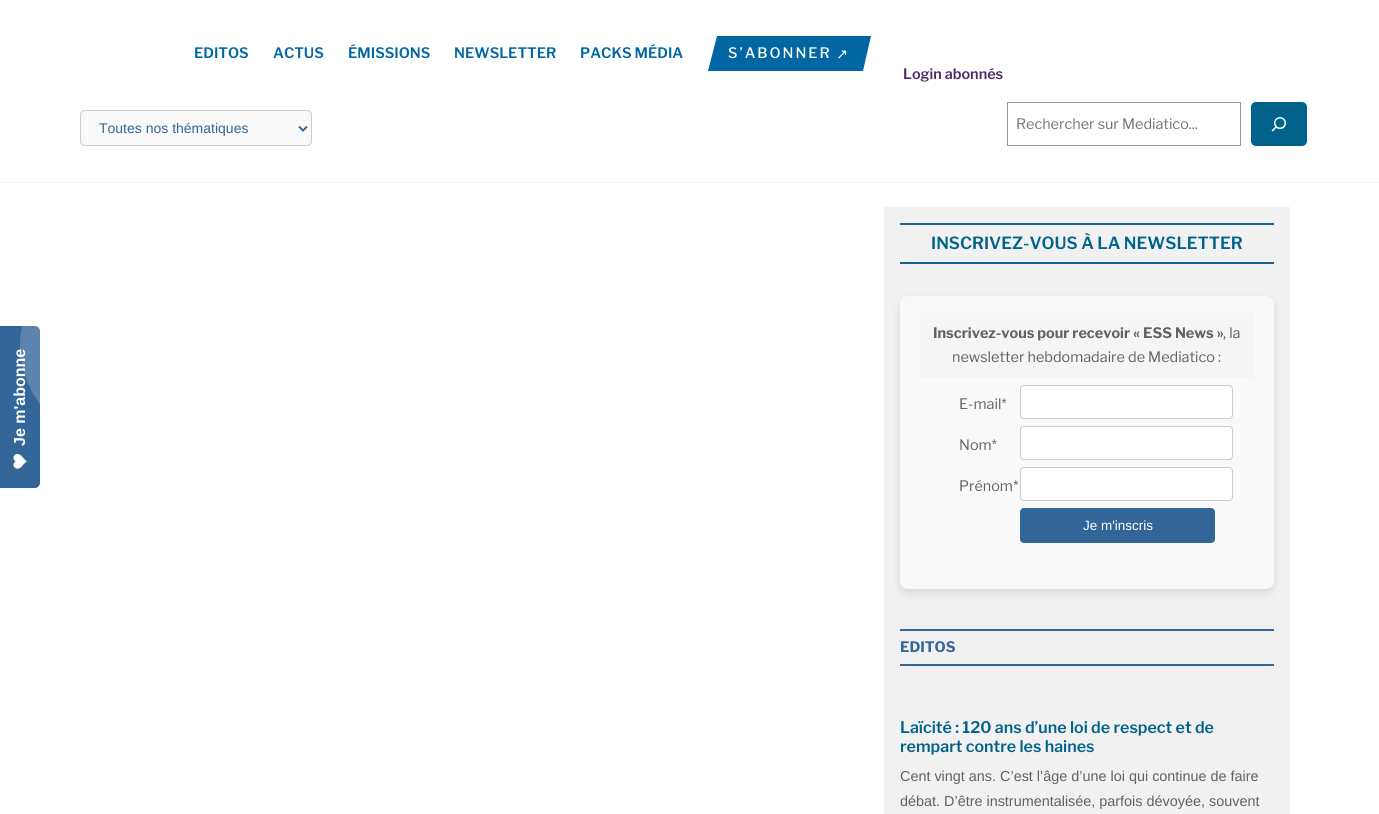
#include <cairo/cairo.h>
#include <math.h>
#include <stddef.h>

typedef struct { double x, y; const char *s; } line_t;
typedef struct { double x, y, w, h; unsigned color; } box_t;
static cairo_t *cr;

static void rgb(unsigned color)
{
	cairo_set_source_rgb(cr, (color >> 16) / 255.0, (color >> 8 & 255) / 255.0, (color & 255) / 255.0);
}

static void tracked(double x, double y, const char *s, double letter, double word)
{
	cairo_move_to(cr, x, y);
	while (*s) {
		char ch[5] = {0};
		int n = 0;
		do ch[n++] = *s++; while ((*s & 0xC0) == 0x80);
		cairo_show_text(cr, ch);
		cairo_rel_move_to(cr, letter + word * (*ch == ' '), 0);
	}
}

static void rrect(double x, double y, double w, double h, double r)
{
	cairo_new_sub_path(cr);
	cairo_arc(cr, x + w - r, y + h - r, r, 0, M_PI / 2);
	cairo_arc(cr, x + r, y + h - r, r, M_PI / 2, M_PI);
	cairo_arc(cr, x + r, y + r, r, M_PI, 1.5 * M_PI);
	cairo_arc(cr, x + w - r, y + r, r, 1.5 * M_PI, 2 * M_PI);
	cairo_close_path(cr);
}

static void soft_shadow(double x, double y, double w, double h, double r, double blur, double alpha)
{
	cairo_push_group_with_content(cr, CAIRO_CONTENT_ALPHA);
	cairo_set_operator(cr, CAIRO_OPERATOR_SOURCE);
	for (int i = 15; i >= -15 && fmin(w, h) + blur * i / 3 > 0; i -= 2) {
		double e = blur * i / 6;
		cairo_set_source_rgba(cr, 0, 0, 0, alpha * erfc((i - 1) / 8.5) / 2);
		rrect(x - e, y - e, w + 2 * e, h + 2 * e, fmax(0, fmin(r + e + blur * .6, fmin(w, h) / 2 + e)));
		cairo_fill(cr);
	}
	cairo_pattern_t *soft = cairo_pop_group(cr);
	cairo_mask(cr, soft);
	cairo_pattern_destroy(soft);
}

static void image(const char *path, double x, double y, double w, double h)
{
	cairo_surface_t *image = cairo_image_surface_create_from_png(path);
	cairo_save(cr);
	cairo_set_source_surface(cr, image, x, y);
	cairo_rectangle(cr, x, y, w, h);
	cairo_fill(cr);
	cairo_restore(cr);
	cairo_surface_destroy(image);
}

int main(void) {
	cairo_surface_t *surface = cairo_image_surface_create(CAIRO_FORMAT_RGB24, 1379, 814);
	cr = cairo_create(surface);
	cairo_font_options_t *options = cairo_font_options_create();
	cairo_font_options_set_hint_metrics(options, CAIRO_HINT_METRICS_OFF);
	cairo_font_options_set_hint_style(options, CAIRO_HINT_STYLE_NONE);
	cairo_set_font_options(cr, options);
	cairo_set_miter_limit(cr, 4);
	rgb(0xffffff);
	cairo_paint(cr);
	rgb(0x336699);
	cairo_new_path(cr);
	cairo_move_to(cr, 0, 488);
	cairo_line_to(cr, 0, 326);
	cairo_line_to(cr, 35, 326);
	cairo_curve_to(cr, 38, 326, 40, 329, 40, 331);
	cairo_line_to(cr, 40, 483);
	cairo_curve_to(cr, 40, 485, 38, 488, 35, 488);
	cairo_close_path(cr);
	cairo_fill(cr);
	image("img/1.png", 13, 454, 14, 15);
	rgb(0xf1f1f1);
	cairo_rectangle(cr, 0, 182, 1379, 1);
	cairo_fill(cr);
	rgb(0x0067a3);
	cairo_new_path(cr);
	cairo_move_to(cr, 717, 36);
	cairo_line_to(cr, 871, 36);
	cairo_line_to(cr, 863, 71);
	cairo_line_to(cr, 708, 71);
	cairo_close_path(cr);
	cairo_fill(cr);
	rgb(0xf9f9f9);
	rrect(80.5, 110.5, 231, 35, 4.5);
	cairo_fill_preserve(cr);
	rgb(0xcccccc);
	cairo_set_line_width(cr, 1);
	cairo_stroke(cr);
	cairo_new_path(cr);
	cairo_move_to(cr, 299, 126.5);
	cairo_line_to(cr, 303, 130.5);
	cairo_line_to(cr, 307, 126.5);
	rgb(0x326699);
	cairo_set_line_width(cr, 2);
	cairo_stroke(cr);
	cairo_rectangle(cr, 1007.5, 102.5, 233, 43);
	rgb(0x949494);
	cairo_set_line_width(cr, 1);
	cairo_stroke(cr);
	rgb(0x00628b);
	rrect(1251, 102, 56, 44, 5);
	cairo_fill(cr);
	image("img/2.png", 1271, 117, 16, 15);
	{
		static const box_t items[] = {
			{884, 207, 406, 607, 0xf1f1f1},
			{900, 223, 374, 2, 0x196296},
			{900, 262, 374, 2, 0x196296},
		};
		for (size_t i = 0; i < sizeof items / sizeof *items; i++) {
			rgb(items[i].color);
			cairo_rectangle(cr, items[i].x, items[i].y, items[i].w, items[i].h);
			cairo_fill(cr);
		}
	}
	rgb(0x000000);
	soft_shadow(900, 300, 374, 293, 8, 4, 0.1);
	rgb(0xf9f9f9);
	rrect(900, 296, 374, 293, 8);
	cairo_fill(cr);
	rgb(0xf5f5f5);
	cairo_rectangle(cr, 920, 313, 334, 65);
	cairo_fill(cr);
	rgb(0xffffff);
	rrect(1020.5, 385.5, 212, 33, 3.5);
	cairo_fill_preserve(cr);
	rgb(0xcccccc);
	cairo_stroke(cr);
	rgb(0xffffff);
	rrect(1020.5, 426.5, 212, 33, 3.5);
	cairo_fill_preserve(cr);
	rgb(0xcccccc);
	cairo_stroke(cr);
	rgb(0xffffff);
	rrect(1020.5, 467.5, 212, 33, 3.5);
	cairo_fill_preserve(cr);
	rgb(0xcccccc);
	cairo_stroke(cr);
	rgb(0x326699);
	rrect(1020, 508, 195, 35, 4);
	cairo_fill(cr);
	cairo_rectangle(cr, 900, 629, 374, 2);
	cairo_fill(cr);
	cairo_rectangle(cr, 900, 664, 374, 2);
	cairo_fill(cr);
	cairo_select_font_face(cr, "Liberation Sans", CAIRO_FONT_SLANT_NORMAL, CAIRO_FONT_WEIGHT_BOLD);
	cairo_set_font_size(cr, 16);
	rgb(0xffffff);
	cairo_save(cr);
	cairo_translate(cr, 25, 446);
	cairo_rotate(cr, -90 * M_PI / 180);
	cairo_move_to(cr, 0, 0);
	cairo_show_text(cr, "Je m'abonne");
	cairo_restore(cr);
	cairo_set_source_rgba(cr, 1, 1, 1, 0.2);
	cairo_new_path(cr);
	cairo_move_to(cr, 20, 344);
	cairo_curve_to(cr, 20, 366, 27, 387, 40, 404);
	cairo_line_to(cr, 40, 331);
	cairo_curve_to(cr, 40, 329, 38, 326, 35, 326);
	cairo_line_to(cr, 22, 326);
	cairo_curve_to(cr, 21, 332, 20, 338, 20, 344);
	cairo_close_path(cr);
	cairo_fill(cr);
	cairo_select_font_face(cr, "Libre Franklin Thin", CAIRO_FONT_SLANT_NORMAL, CAIRO_FONT_WEIGHT_NORMAL);
	cairo_set_font_size(cr, 14.4);
	rgb(0x0067a3);
	{
		static const line_t items[] = {
			{194, 58, "EDITOS"},
			{273, 58, "ACTUS"},
			{348, 58, "ÉMISSIONS"},
			{454, 58, "NEWSLETTER"},
			{580, 58, "PACKS MÉDIA"},
		};
		for (size_t i = 0; i < sizeof items / sizeof *items; i++) {
			cairo_move_to(cr, items[i].x, items[i].y);
			cairo_show_text(cr, items[i].s);
		}
	}
	cairo_select_font_face(cr, "Libre Franklin Medium", CAIRO_FONT_SLANT_NORMAL, CAIRO_FONT_WEIGHT_NORMAL);
	rgb(0xffffff);
	tracked(728, 58, "S’ABONNER", 2, 0);
	cairo_select_font_face(cr, "DejaVu Sans", CAIRO_FONT_SLANT_NORMAL, CAIRO_FONT_WEIGHT_NORMAL);
	tracked(836, 59, "↗", 2, 0);
	cairo_select_font_face(cr, "Libre Franklin Thin", CAIRO_FONT_SLANT_NORMAL, CAIRO_FONT_WEIGHT_NORMAL);
	rgb(0x4f2762);
	cairo_move_to(cr, 903, 79);
	cairo_show_text(cr, "Login abonnés");
	cairo_select_font_face(cr, "Liberation Sans", CAIRO_FONT_SLANT_NORMAL, CAIRO_FONT_WEIGHT_NORMAL);
	cairo_set_font_size(cr, 14);
	rgb(0x326699);
	cairo_move_to(cr, 99, 133);
	cairo_show_text(cr, "Toutes nos thématiques");
	cairo_select_font_face(cr, "Libre Franklin", CAIRO_FONT_SLANT_NORMAL, CAIRO_FONT_WEIGHT_NORMAL);
	cairo_set_font_size(cr, 14.4);
	rgb(0x757575);
	cairo_move_to(cr, 1016, 129);
	cairo_show_text(cr, "Rechercher sur Mediatico...");
	cairo_select_font_face(cr, "Libre Franklin Thin", CAIRO_FONT_SLANT_NORMAL, CAIRO_FONT_WEIGHT_NORMAL);
	cairo_set_font_size(cr, 16.75);
	rgb(0x00628b);
	cairo_move_to(cr, 931, 249);
	cairo_show_text(cr, "INSCRIVEZ-VOUS À LA NEWSLETTER");
	cairo_select_font_face(cr, "Libre Franklin", CAIRO_FONT_SLANT_NORMAL, CAIRO_FONT_WEIGHT_BOLD);
	cairo_set_font_size(cr, 14.4);
	rgb(0x636262);
	cairo_move_to(cr, 933, 338);
	cairo_show_text(cr, "Inscrivez-vous pour recevoir « ESS News »");
	cairo_select_font_face(cr, "Libre Franklin", CAIRO_FONT_SLANT_NORMAL, CAIRO_FONT_WEIGHT_NORMAL);
	{
		static const line_t items[] = {
			{1223, 338, ", la"},
			{952, 362, "newsletter hebdomadaire de Mediatico :"},
			{959, 409, "E-mail*"},
			{959, 450, "Nom*"},
			{959, 491, "Prénom*"},
		};
		for (size_t i = 0; i < sizeof items / sizeof *items; i++) {
			cairo_move_to(cr, items[i].x, items[i].y);
			cairo_show_text(cr, items[i].s);
		}
	}
	cairo_select_font_face(cr, "Liberation Sans", CAIRO_FONT_SLANT_NORMAL, CAIRO_FONT_WEIGHT_NORMAL);
	cairo_set_font_size(cr, 13.5);
	rgb(0xffffff);
	cairo_move_to(cr, 1083, 530);
	cairo_show_text(cr, "Je m'inscris");
	cairo_select_font_face(cr, "Libre Franklin", CAIRO_FONT_SLANT_NORMAL, CAIRO_FONT_WEIGHT_BOLD);
	cairo_set_font_size(cr, 14.4);
	rgb(0x326699);
	cairo_move_to(cr, 900, 652);
	cairo_show_text(cr, "EDITOS");
	cairo_select_font_face(cr, "Libre Franklin Thin", CAIRO_FONT_SLANT_NORMAL, CAIRO_FONT_WEIGHT_NORMAL);
	cairo_set_font_size(cr, 16);
	rgb(0x00628b);
	cairo_move_to(cr, 900, 733);
	cairo_show_text(cr, "Laïcité : 120 ans d’une loi de respect et de");
	cairo_move_to(cr, 900, 752);
	cairo_show_text(cr, "rempart contre les haines");
	cairo_select_font_face(cr, "Liberation Sans", CAIRO_FONT_SLANT_NORMAL, CAIRO_FONT_WEIGHT_NORMAL);
	cairo_set_font_size(cr, 14.4);
	rgb(0x636262);
	cairo_move_to(cr, 900, 781);
	cairo_show_text(cr, "Cent vingt ans. C’est l’âge d’une loi qui continue de faire");
	cairo_move_to(cr, 900, 806);
	cairo_show_text(cr, "débat. D’être instrumentalisée, parfois dévoyée, souvent");
	cairo_surface_write_to_png(surface, "page.png");
	cairo_font_options_destroy(options);
	cairo_destroy(cr);
	cairo_surface_destroy(surface);
	return 0;
}
